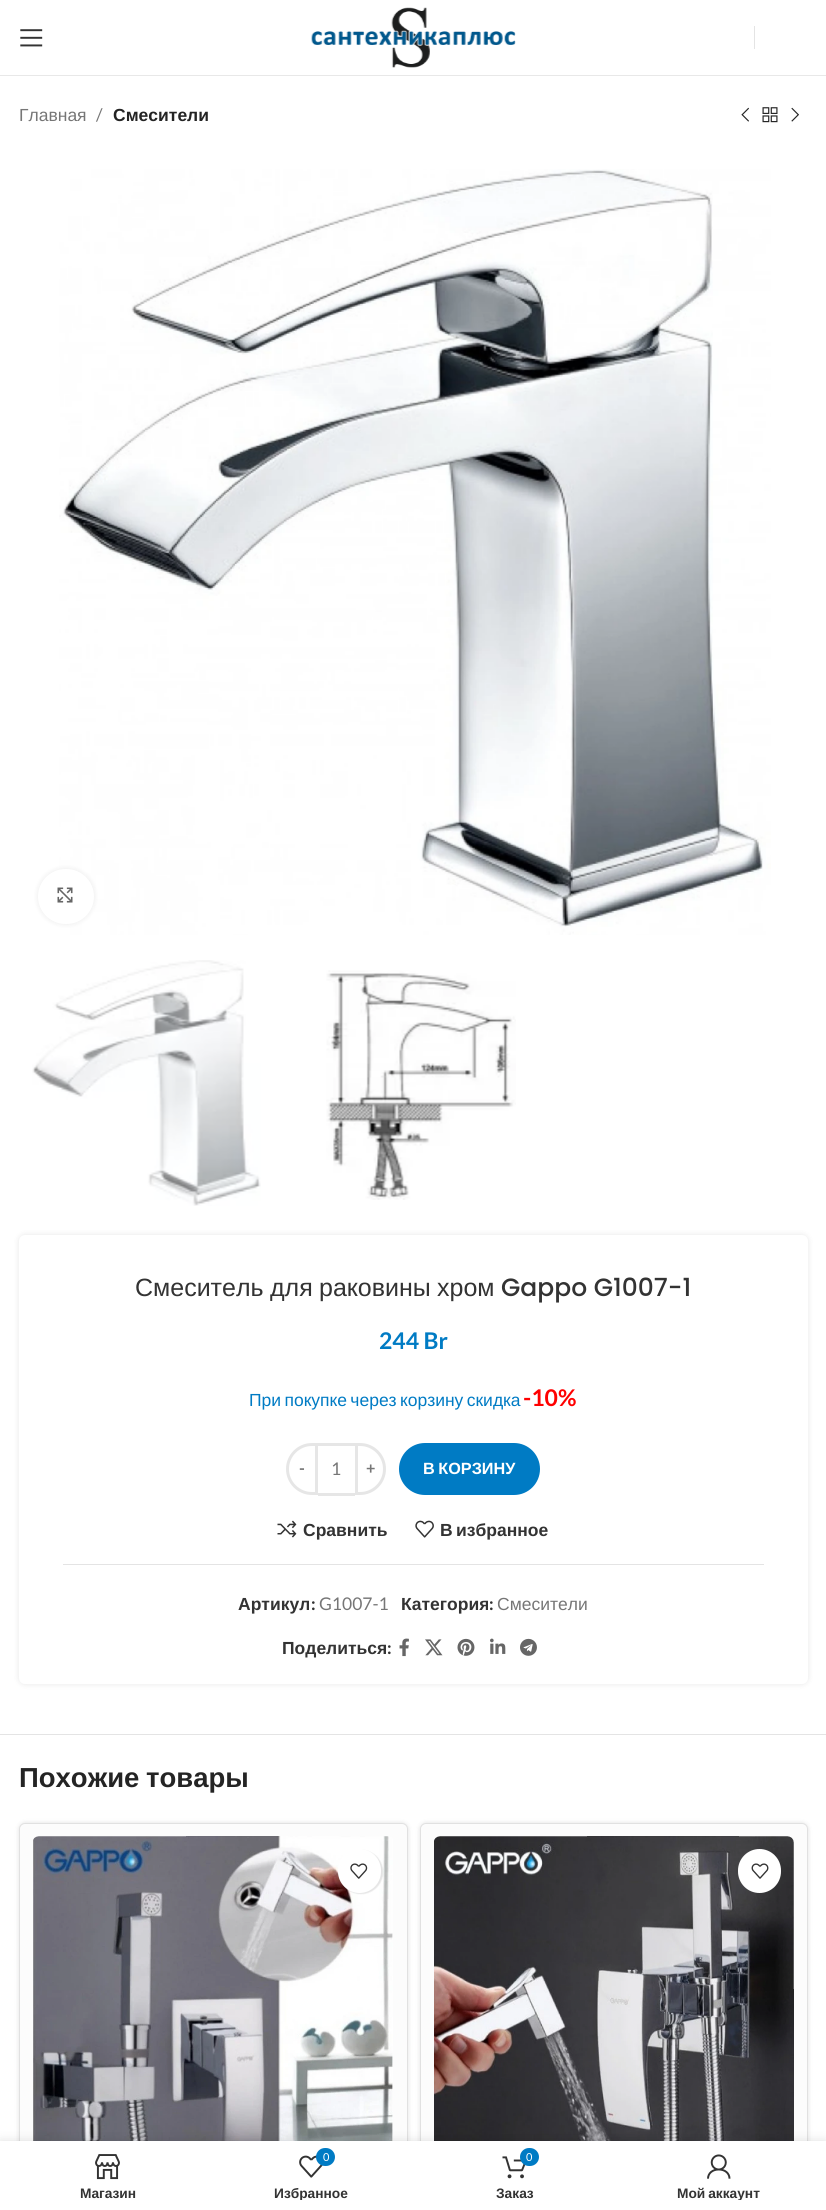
#include <cairo/cairo.h>
#include <math.h>
#include <stddef.h>

typedef struct { double x, y; const char *s; } line_t;
static cairo_t *cr;

static void rgb(unsigned color)
{
	cairo_set_source_rgb(cr, (color >> 16) / 255.0, (color >> 8 & 255) / 255.0, (color & 255) / 255.0);
}

static void tracked(double x, double y, const char *s, double letter, double word)
{
	cairo_move_to(cr, x, y);
	while (*s) {
		char ch[5] = {0};
		int n = 0;
		do ch[n++] = *s++; while ((*s & 0xC0) == 0x80);
		cairo_show_text(cr, ch);
		cairo_rel_move_to(cr, letter + word * (*ch == ' '), 0);
	}
}

static void rrect(double x, double y, double w, double h, double r)
{
	cairo_new_sub_path(cr);
	cairo_arc(cr, x + w - r, y + h - r, r, 0, M_PI / 2);
	cairo_arc(cr, x + r, y + h - r, r, M_PI / 2, M_PI);
	cairo_arc(cr, x + r, y + r, r, M_PI, 1.5 * M_PI);
	cairo_arc(cr, x + w - r, y + r, r, 1.5 * M_PI, 2 * M_PI);
	cairo_close_path(cr);
}

static void soft_shadow(double x, double y, double w, double h, double r, double blur, double alpha)
{
	cairo_push_group_with_content(cr, CAIRO_CONTENT_ALPHA);
	cairo_set_operator(cr, CAIRO_OPERATOR_SOURCE);
	for (int i = 15; i >= -15 && fmin(w, h) + blur * i / 3 > 0; i -= 2) {
		double e = blur * i / 6;
		cairo_set_source_rgba(cr, 0, 0, 0, alpha * erfc((i - 1) / 8.5) / 2);
		rrect(x - e, y - e, w + 2 * e, h + 2 * e, fmax(0, fmin(r + e + blur * .6, fmin(w, h) / 2 + e)));
		cairo_fill(cr);
	}
	cairo_pattern_t *soft = cairo_pop_group(cr);
	cairo_mask(cr, soft);
	cairo_pattern_destroy(soft);
}

static void image(const char *path, double x, double y, double w, double h)
{
	cairo_surface_t *image = cairo_image_surface_create_from_png(path);
	cairo_save(cr);
	cairo_set_source_surface(cr, image, x, y);
	cairo_rectangle(cr, x, y, w, h);
	cairo_fill(cr);
	cairo_restore(cr);
	cairo_surface_destroy(image);
}

int main(void) {
	cairo_surface_t *surface = cairo_image_surface_create(CAIRO_FORMAT_RGB24, 826, 2210);
	cr = cairo_create(surface);
	cairo_font_options_t *options = cairo_font_options_create();
	cairo_font_options_set_hint_metrics(options, CAIRO_HINT_METRICS_OFF);
	cairo_font_options_set_hint_style(options, CAIRO_HINT_STYLE_NONE);
	cairo_set_font_options(cr, options);
	cairo_set_miter_limit(cr, 4);
	rgb(0xffffff);
	cairo_paint(cr);
	rgb(0xe8e8e8);
	cairo_rectangle(cr, 0, 75, 826, 1);
	cairo_fill(cr);
	image("img/1.png", 20, 29, 23, 18);
	image("img/2.png", 311, 7, 205, 61);
	rgb(0xe4e4e4);
	cairo_rectangle(cr, 754, 26, 1, 23);
	cairo_fill(cr);
	image("img/3.png", 741, 107, 8, 15);
	image("img/4.png", 762, 107, 16, 16);
	image("img/5.png", 791, 107, 8, 15);
	image("img/6.png", 59, 169, 712, 766);
	rgb(0x000000);
	soft_shadow(38, 869, 56, 55, 27.5, 3, 0.08);
	rgb(0xffffff);
	rrect(38, 869, 56, 55, 27.5);
	cairo_fill(cr);
	image("img/7.png", 57, 887, 16, 16);
	image("img/8.png", 32, 960, 229, 246);
	image("img/9.png", 326, 970, 190, 230);
	rgb(0x000000);
	soft_shadow(19, 1235, 789, 449, 6, 3, 0.1);
	rgb(0xffffff);
	rrect(19, 1235, 789, 449, 6);
	cairo_fill(cr);
	cairo_new_path(cr);
	cairo_move_to(cr, 312, 1444.5);
	cairo_line_to(cr, 316.5, 1444.5);
	cairo_line_to(cr, 316.5, 1493.5);
	cairo_line_to(cr, 312, 1493.5);
	cairo_curve_to(cr, 298.5, 1493.5, 287.5, 1482.5, 287.5, 1469);
	cairo_curve_to(cr, 287.5, 1455.5, 298.5, 1444.5, 312, 1444.5);
	cairo_close_path(cr);
	rgb(0xe6e6e6);
	cairo_set_line_width(cr, 3);
	cairo_stroke(cr);
	cairo_rectangle(cr, 318, 1443, 37, 3);
	cairo_fill(cr);
	cairo_rectangle(cr, 318, 1493, 37, 3);
	cairo_fill(cr);
	cairo_new_path(cr);
	cairo_move_to(cr, 356.5, 1444.5);
	cairo_line_to(cr, 360, 1444.5);
	cairo_curve_to(cr, 373.5, 1444.5, 384.5, 1455.5, 384.5, 1469);
	cairo_curve_to(cr, 384.5, 1482.5, 373.5, 1493.5, 360, 1493.5);
	cairo_line_to(cr, 356.5, 1493.5);
	cairo_close_path(cr);
	cairo_stroke(cr);
	rgb(0x007bc4);
	rrect(399, 1443, 141, 52, 26);
	cairo_fill(cr);
	image("img/10.png", 277, 1520, 20, 18);
	image("img/11.png", 415, 1520, 19, 18);
	rgb(0xe4e4e4);
	cairo_rectangle(cr, 63, 1564, 701, 1);
	cairo_fill(cr);
	image("img/12.png", 399, 1638, 10, 19);
	image("img/13.png", 425, 1639, 18, 17);
	image("img/14.png", 457, 1638, 18, 18);
	image("img/15.png", 490, 1638, 16, 16);
	image("img/16.png", 520, 1638, 17, 18);
	cairo_rectangle(cr, 0, 1734, 826, 1);
	cairo_fill(cr);
	rgb(0x000000);
	soft_shadow(19, 1823, 389, 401, 6, 2.5, 0.12);
	rgb(0xfcfcfc);
	rrect(19.5, 1823.5, 388, 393, 5.5);
	cairo_fill_preserve(cr);
	rgb(0xe1e1e1);
	cairo_set_line_width(cr, 1);
	cairo_stroke(cr);
	image("img/17.png", 33, 1836, 360, 305);
	rgb(0x000000);
	soft_shadow(339, 1850, 44, 44, 22, 0.5, 0.1);
	rgb(0xffffff);
	rrect(338, 1849, 43, 44, 21.5);
	cairo_fill(cr);
	image("img/18.png", 350, 1863, 18, 16);
	rgb(0x000000);
	soft_shadow(420, 1823, 388, 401, 6, 2.5, 0.12);
	rgb(0xfcfcfc);
	rrect(420.5, 1823.5, 387, 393, 5.5);
	cairo_fill_preserve(cr);
	rgb(0xe1e1e1);
	cairo_stroke(cr);
	image("img/19.png", 434, 1836, 360, 305);
	rgb(0xffffff);
	rrect(738, 1849, 43, 44, 21.5);
	cairo_fill(cr);
	image("img/20.png", 751, 1863, 18, 16);
	rgb(0x000000);
	soft_shadow(0, 2141, 826, 69, 0, 5.5, 0.12);
	rgb(0xffffff);
	cairo_rectangle(cr, 0, 2141, 826, 69);
	cairo_fill(cr);
	image("img/21.png", 95, 2154, 25, 26);
	image("img/22.png", 299, 2155, 24, 23);
	rgb(0x007bc4);
	rrect(316, 2148, 19, 18, 9);
	cairo_fill(cr);
	image("img/23.png", 502, 2156, 24, 23);
	rrect(520, 2148, 19, 18, 9);
	cairo_fill(cr);
	image("img/24.png", 707, 2154, 24, 25);
	cairo_select_font_face(cr, "Liberation Sans", CAIRO_FONT_SLANT_NORMAL, CAIRO_FONT_WEIGHT_NORMAL);
	cairo_set_font_size(cr, 17.5);
	rgb(0x767676);
	cairo_move_to(cr, 19, 121);
	cairo_show_text(cr, "Главная");
	cairo_select_font_face(cr, "Lato", CAIRO_FONT_SLANT_NORMAL, CAIRO_FONT_WEIGHT_NORMAL);
	cairo_move_to(cr, 96, 121);
	cairo_show_text(cr, "/");
	cairo_select_font_face(cr, "Liberation Sans", CAIRO_FONT_SLANT_NORMAL, CAIRO_FONT_WEIGHT_BOLD);
	rgb(0x242424);
	cairo_move_to(cr, 113, 121);
	cairo_show_text(cr, "Смесители");
	cairo_select_font_face(cr, "Liberation Sans", CAIRO_FONT_SLANT_NORMAL, CAIRO_FONT_WEIGHT_NORMAL);
	cairo_set_font_size(cr, 25);
	rgb(0x333333);
	{
		static const line_t items[] = {
			{135, 1296, "Смеситель"},
			{270, 1296, "для"},
			{319, 1296, "раковины"},
			{437, 1296, "хром"},
		};
		for (size_t i = 0; i < sizeof items / sizeof *items; i++) {
			cairo_move_to(cr, items[i].x, items[i].y);
			cairo_show_text(cr, items[i].s);
		}
	}
	cairo_select_font_face(cr, "Poppins Medium", CAIRO_FONT_SLANT_NORMAL, CAIRO_FONT_WEIGHT_NORMAL);
	cairo_move_to(cr, 501, 1296);
	cairo_show_text(cr, "Gappo G1007-1");
	cairo_select_font_face(cr, "Lato", CAIRO_FONT_SLANT_NORMAL, CAIRO_FONT_WEIGHT_BOLD);
	cairo_set_font_size(cr, 23);
	rgb(0x007bc4);
	cairo_move_to(cr, 379, 1349);
	cairo_show_text(cr, "244 Br");
	cairo_select_font_face(cr, "Liberation Sans", CAIRO_FONT_SLANT_NORMAL, CAIRO_FONT_WEIGHT_NORMAL);
	cairo_set_font_size(cr, 17.5);
	tracked(249, 1406, "При покупке через корзину скидка", 0, -1.5);
	cairo_select_font_face(cr, "Lato", CAIRO_FONT_SLANT_NORMAL, CAIRO_FONT_WEIGHT_BOLD);
	cairo_set_font_size(cr, 23);
	rgb(0xff0000);
	cairo_move_to(cr, 523, 1406);
	cairo_show_text(cr, "-10%");
	cairo_set_font_size(cr, 16.25);
	rgb(0x767676);
	cairo_move_to(cr, 299, 1474);
	cairo_show_text(cr, "-");
	cairo_select_font_face(cr, "Lato", CAIRO_FONT_SLANT_NORMAL, CAIRO_FONT_WEIGHT_NORMAL);
	cairo_set_font_size(cr, 17.5);
	cairo_move_to(cr, 331, 1475);
	cairo_show_text(cr, "1");
	cairo_select_font_face(cr, "Lato", CAIRO_FONT_SLANT_NORMAL, CAIRO_FONT_WEIGHT_BOLD);
	cairo_set_font_size(cr, 16.25);
	cairo_move_to(cr, 366, 1474);
	cairo_show_text(cr, "+");
	cairo_select_font_face(cr, "Liberation Sans", CAIRO_FONT_SLANT_NORMAL, CAIRO_FONT_WEIGHT_BOLD);
	rgb(0xffffff);
	tracked(423, 1474, "В КОРЗИНУ", 0, -1);
	cairo_set_font_size(cr, 17.5);
	rgb(0x333333);
	cairo_move_to(cr, 303, 1536);
	cairo_show_text(cr, "Сравнить");
	tracked(440, 1536, "В избранное", 0, -1.5);
	cairo_move_to(cr, 238, 1610);
	cairo_show_text(cr, "Артикул");
	cairo_select_font_face(cr, "Lato", CAIRO_FONT_SLANT_NORMAL, CAIRO_FONT_WEIGHT_BOLD);
	cairo_move_to(cr, 311, 1610);
	cairo_show_text(cr, ":");
	cairo_select_font_face(cr, "Lato", CAIRO_FONT_SLANT_NORMAL, CAIRO_FONT_WEIGHT_NORMAL);
	rgb(0x767676);
	cairo_move_to(cr, 319, 1610);
	cairo_show_text(cr, "G1007-1");
	cairo_select_font_face(cr, "Liberation Sans", CAIRO_FONT_SLANT_NORMAL, CAIRO_FONT_WEIGHT_BOLD);
	rgb(0x333333);
	cairo_move_to(cr, 401, 1610);
	cairo_show_text(cr, "Категория");
	cairo_select_font_face(cr, "Lato", CAIRO_FONT_SLANT_NORMAL, CAIRO_FONT_WEIGHT_BOLD);
	cairo_move_to(cr, 489, 1610);
	cairo_show_text(cr, ":");
	cairo_select_font_face(cr, "Liberation Sans", CAIRO_FONT_SLANT_NORMAL, CAIRO_FONT_WEIGHT_NORMAL);
	rgb(0x767676);
	cairo_move_to(cr, 497, 1610);
	cairo_show_text(cr, "Смесители");
	cairo_select_font_face(cr, "Liberation Sans", CAIRO_FONT_SLANT_NORMAL, CAIRO_FONT_WEIGHT_BOLD);
	rgb(0x333333);
	cairo_move_to(cr, 282, 1654);
	cairo_show_text(cr, "Поделиться");
	cairo_select_font_face(cr, "Lato", CAIRO_FONT_SLANT_NORMAL, CAIRO_FONT_WEIGHT_BOLD);
	cairo_move_to(cr, 387, 1654);
	cairo_show_text(cr, ":");
	cairo_select_font_face(cr, "Liberation Sans", CAIRO_FONT_SLANT_NORMAL, CAIRO_FONT_WEIGHT_BOLD);
	cairo_set_font_size(cr, 27.5);
	rgb(0x242424);
	tracked(19, 1787, "Похожие товары", 0, -1);
	cairo_set_font_size(cr, 13.75);
	rgb(0x333333);
	cairo_move_to(cr, 80, 2198);
	cairo_show_text(cr, "Магазин");
	cairo_select_font_face(cr, "Lato", CAIRO_FONT_SLANT_NORMAL, CAIRO_FONT_WEIGHT_NORMAL);
	cairo_set_font_size(cr, 11);
	rgb(0xffffff);
	cairo_move_to(cr, 323, 2161);
	cairo_show_text(cr, "0");
	cairo_save(cr);
	cairo_rectangle(cr, 223, 2184, 178, 16);
	cairo_clip(cr);
	cairo_select_font_face(cr, "Liberation Sans", CAIRO_FONT_SLANT_NORMAL, CAIRO_FONT_WEIGHT_BOLD);
	cairo_set_font_size(cr, 13.75);
	rgb(0x333333);
	cairo_move_to(cr, 274, 2198);
	cairo_show_text(cr, "Избранное");
	cairo_restore(cr);
	cairo_move_to(cr, 526, 2161);
	cairo_show_text(cr, "0");
	cairo_select_font_face(cr, "Liberation Sans", CAIRO_FONT_SLANT_NORMAL, CAIRO_FONT_WEIGHT_BOLD);
	cairo_set_font_size(cr, 13.75);
	rgb(0x333333);
	cairo_move_to(cr, 496, 2198);
	cairo_show_text(cr, "Заказ");
	cairo_save(cr);
	cairo_rectangle(cr, 629, 2184, 179, 16);
	cairo_clip(cr);
	tracked(677, 2198, "Мой аккаунт", 0, -1);
	cairo_restore(cr);
	cairo_surface_write_to_png(surface, "page.png");
	cairo_font_options_destroy(options);
	cairo_destroy(cr);
	cairo_surface_destroy(surface);
	return 0;
}
